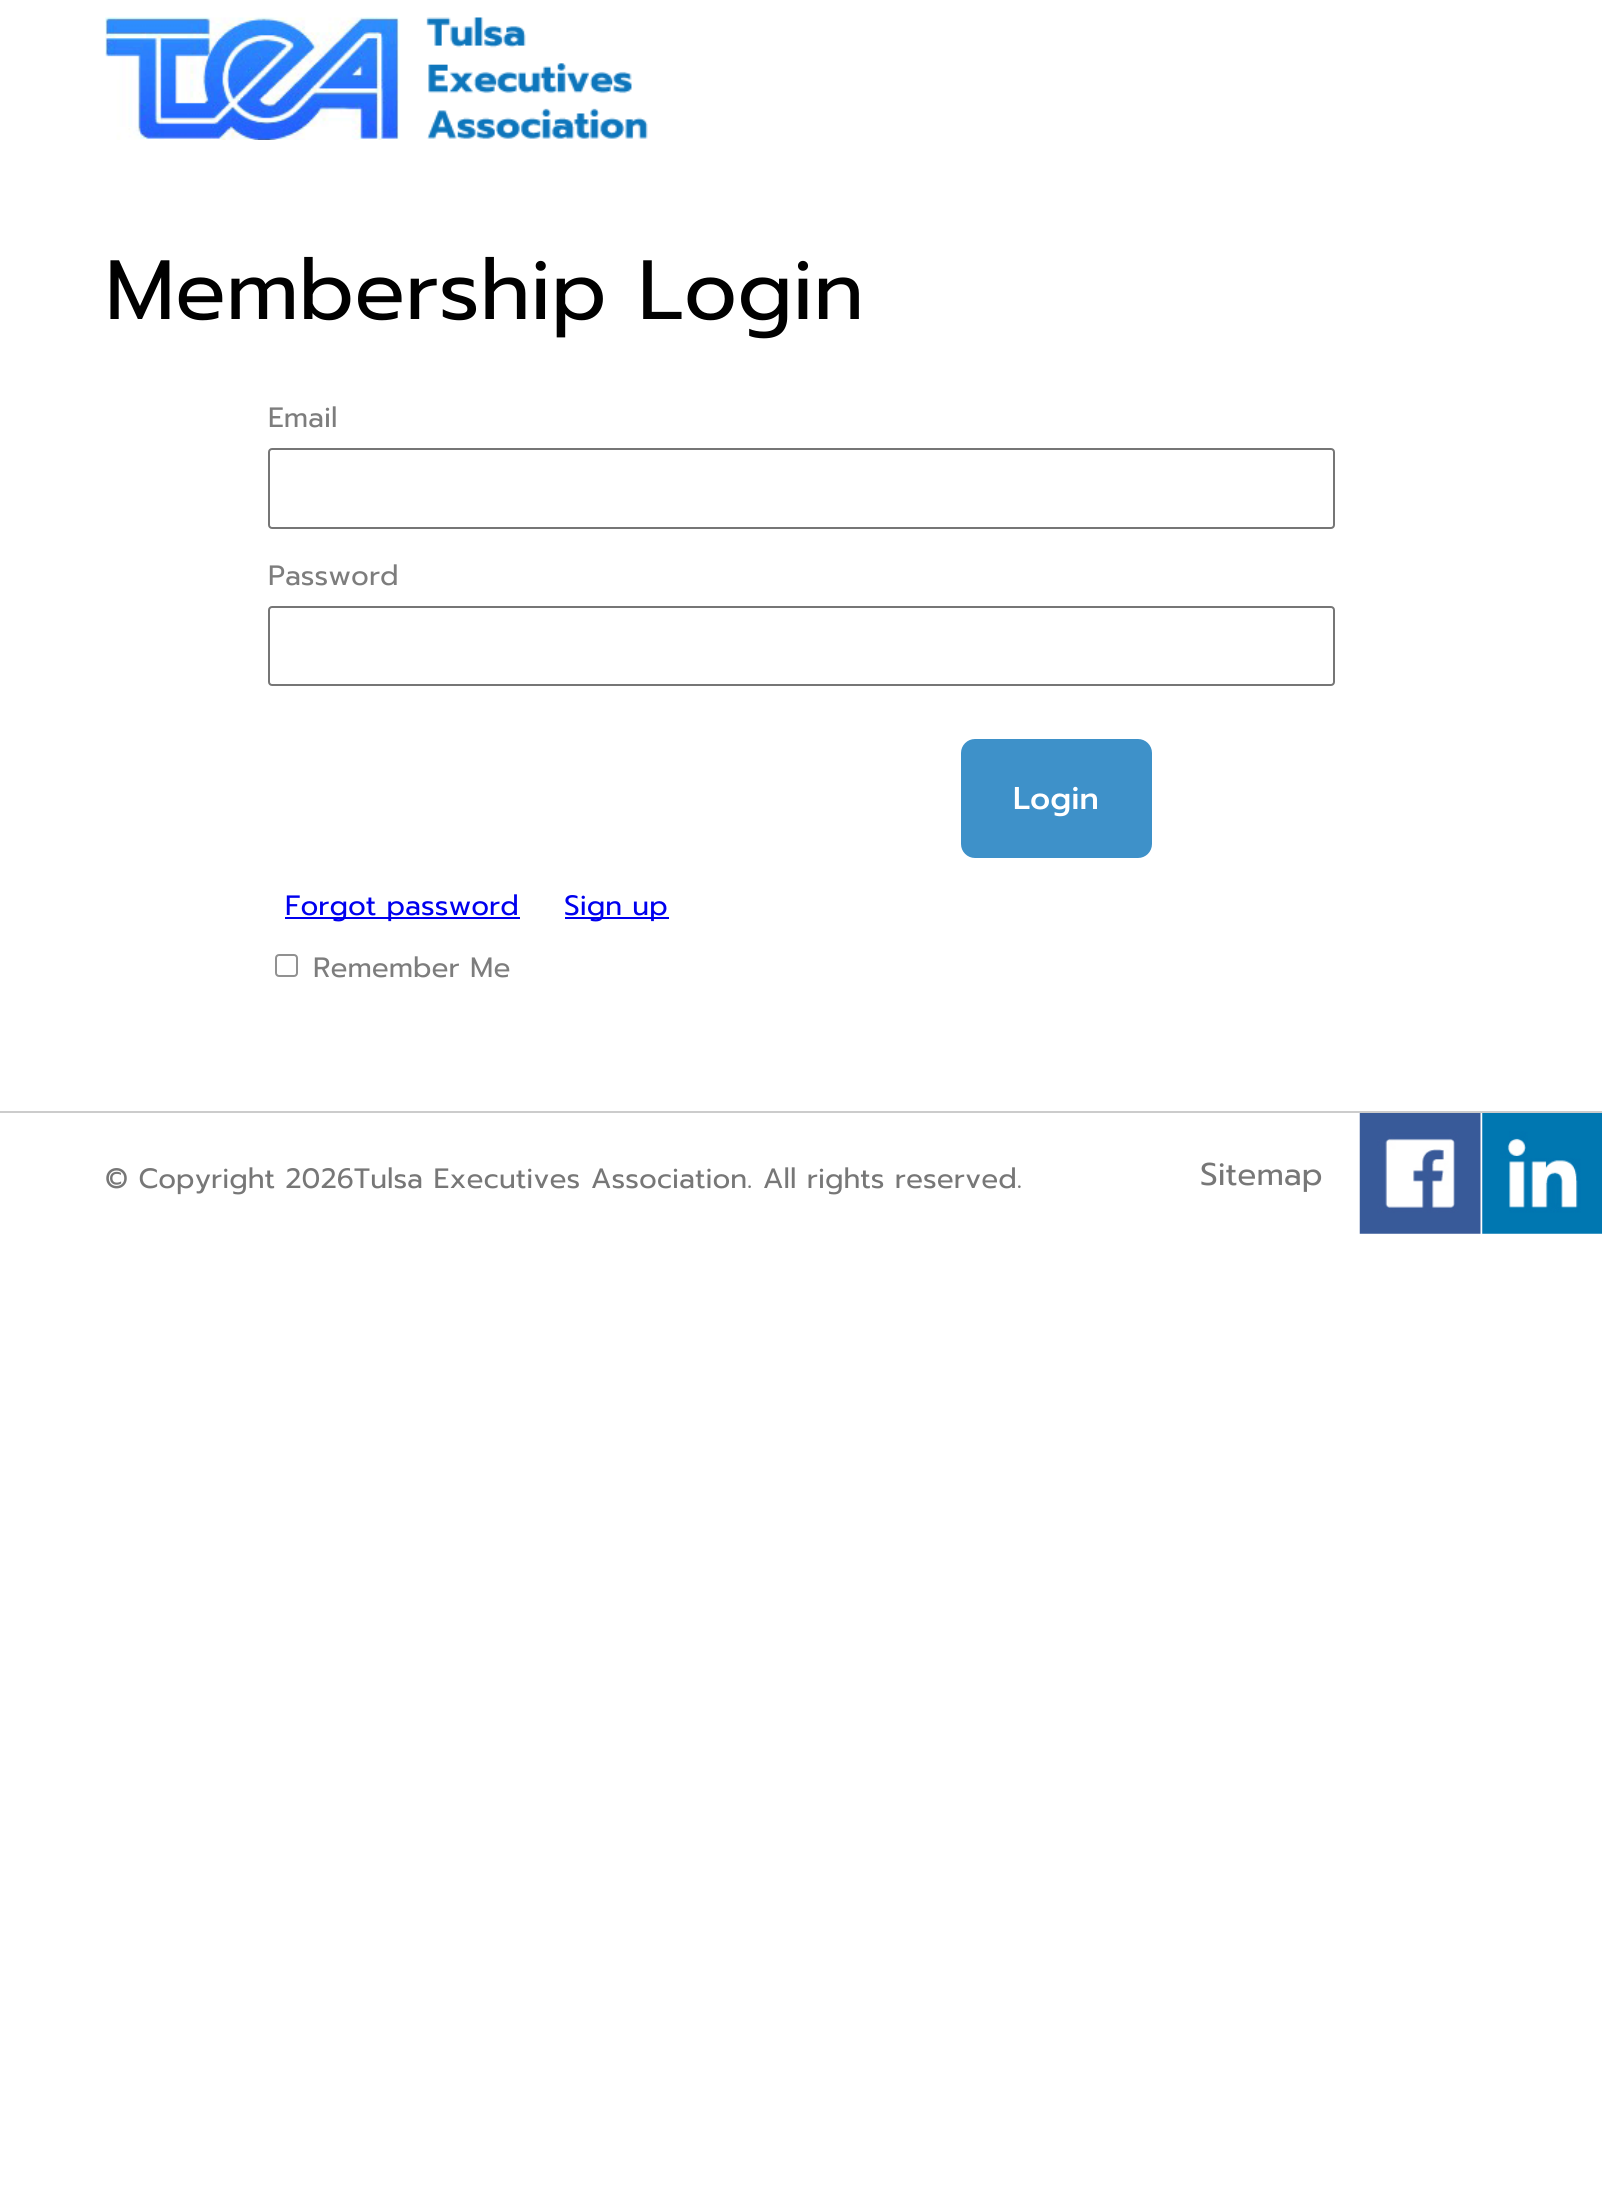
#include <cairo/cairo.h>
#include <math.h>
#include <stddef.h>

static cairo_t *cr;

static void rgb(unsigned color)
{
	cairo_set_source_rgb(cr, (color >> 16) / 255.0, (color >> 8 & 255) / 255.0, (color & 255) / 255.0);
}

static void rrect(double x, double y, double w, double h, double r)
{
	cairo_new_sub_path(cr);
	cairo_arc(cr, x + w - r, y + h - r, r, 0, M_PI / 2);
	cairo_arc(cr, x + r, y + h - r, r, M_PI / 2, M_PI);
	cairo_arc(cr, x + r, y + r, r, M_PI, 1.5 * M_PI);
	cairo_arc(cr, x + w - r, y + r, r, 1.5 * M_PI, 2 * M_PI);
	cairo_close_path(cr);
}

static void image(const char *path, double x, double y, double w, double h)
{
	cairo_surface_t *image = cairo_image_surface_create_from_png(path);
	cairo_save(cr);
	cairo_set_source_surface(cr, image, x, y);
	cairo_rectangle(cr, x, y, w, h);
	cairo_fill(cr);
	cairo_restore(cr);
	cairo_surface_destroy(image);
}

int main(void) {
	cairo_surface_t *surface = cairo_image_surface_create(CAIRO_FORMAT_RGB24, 1602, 2195);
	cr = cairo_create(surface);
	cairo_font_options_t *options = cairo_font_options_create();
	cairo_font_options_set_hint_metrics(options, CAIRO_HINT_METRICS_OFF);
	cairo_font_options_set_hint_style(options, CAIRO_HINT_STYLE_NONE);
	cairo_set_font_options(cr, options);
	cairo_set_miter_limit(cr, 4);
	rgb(0xffffff);
	cairo_paint(cr);
	image("img/1.png", 105, 17, 543, 123);
	rrect(269, 449, 1065, 79, 3);
	rgb(0x767676);
	cairo_stroke(cr);
	rrect(269, 607, 1065, 78, 3);
	cairo_stroke(cr);
	rgb(0x3e91c9);
	rrect(961, 739, 191, 119, 14);
	cairo_fill(cr);
	rgb(0x0000ee);
	cairo_rectangle(cr, 285, 917, 235, 2);
	cairo_fill(cr);
	cairo_rectangle(cr, 565, 917, 104, 2);
	cairo_fill(cr);
	rrect(276, 955, 21, 21, 3);
	rgb(0x919191);
	cairo_stroke(cr);
	rgb(0xcccccc);
	cairo_rectangle(cr, 0, 1111, 1602, 2);
	cairo_fill(cr);
	image("img/2.png", 1359, 1113, 122, 121);
	image("img/3.png", 1482, 1113, 120, 121);
	cairo_select_font_face(cr, "Prompt", CAIRO_FONT_SLANT_NORMAL, CAIRO_FONT_WEIGHT_NORMAL);
	cairo_set_font_size(cr, 84);
	rgb(0x000000);
	cairo_move_to(cr, 105, 319);
	cairo_show_text(cr, "Membership Login");
	cairo_set_font_size(cr, 28);
	rgb(0x7d7d7d);
	cairo_move_to(cr, 268, 427);
	cairo_show_text(cr, "Email");
	cairo_move_to(cr, 268, 585);
	cairo_show_text(cr, "Password");
	cairo_select_font_face(cr, "Prompt Medium", CAIRO_FONT_SLANT_NORMAL, CAIRO_FONT_WEIGHT_NORMAL);
	cairo_set_font_size(cr, 31.5);
	rgb(0xffffff);
	cairo_move_to(cr, 1013, 809);
	cairo_show_text(cr, "Login");
	cairo_select_font_face(cr, "Prompt", CAIRO_FONT_SLANT_NORMAL, CAIRO_FONT_WEIGHT_NORMAL);
	cairo_set_font_size(cr, 28);
	rgb(0x0000ee);
	cairo_move_to(cr, 285, 915);
	cairo_show_text(cr, "Forgot password");
	cairo_move_to(cr, 564, 915);
	cairo_show_text(cr, "Sign up");
	rgb(0x7d7d7d);
	cairo_move_to(cr, 313, 977);
	cairo_show_text(cr, "Remember Me");
	rgb(0x777777);
	cairo_move_to(cr, 105, 1188);
	cairo_show_text(cr, "© Copyright 2026Tulsa Executives Association. All rights reserved.");
	cairo_set_font_size(cr, 31.5);
	cairo_move_to(cr, 1200, 1185);
	cairo_show_text(cr, "Sitemap");
	cairo_surface_write_to_png(surface, "page.png");
	cairo_font_options_destroy(options);
	cairo_destroy(cr);
	cairo_surface_destroy(surface);
	return 0;
}
